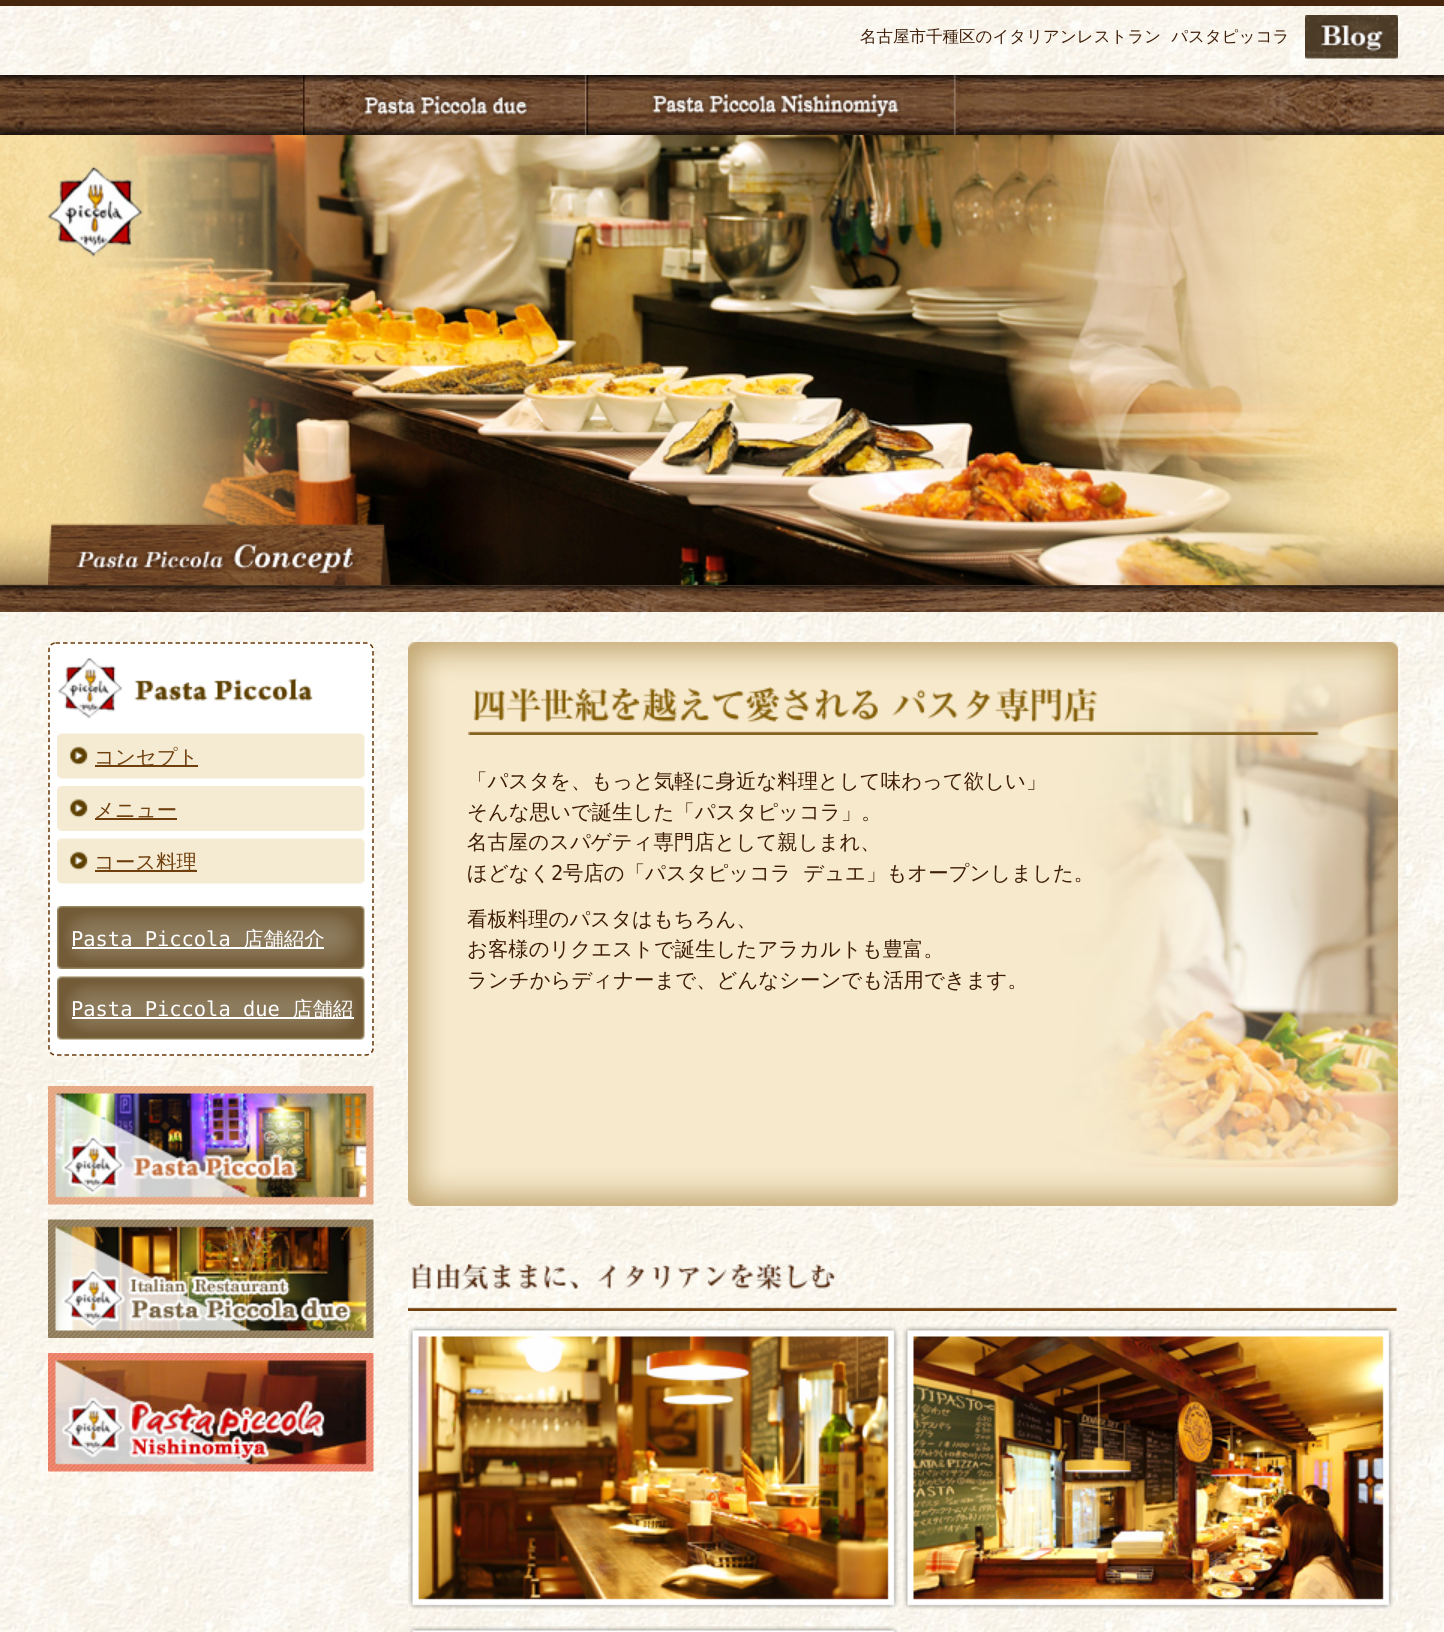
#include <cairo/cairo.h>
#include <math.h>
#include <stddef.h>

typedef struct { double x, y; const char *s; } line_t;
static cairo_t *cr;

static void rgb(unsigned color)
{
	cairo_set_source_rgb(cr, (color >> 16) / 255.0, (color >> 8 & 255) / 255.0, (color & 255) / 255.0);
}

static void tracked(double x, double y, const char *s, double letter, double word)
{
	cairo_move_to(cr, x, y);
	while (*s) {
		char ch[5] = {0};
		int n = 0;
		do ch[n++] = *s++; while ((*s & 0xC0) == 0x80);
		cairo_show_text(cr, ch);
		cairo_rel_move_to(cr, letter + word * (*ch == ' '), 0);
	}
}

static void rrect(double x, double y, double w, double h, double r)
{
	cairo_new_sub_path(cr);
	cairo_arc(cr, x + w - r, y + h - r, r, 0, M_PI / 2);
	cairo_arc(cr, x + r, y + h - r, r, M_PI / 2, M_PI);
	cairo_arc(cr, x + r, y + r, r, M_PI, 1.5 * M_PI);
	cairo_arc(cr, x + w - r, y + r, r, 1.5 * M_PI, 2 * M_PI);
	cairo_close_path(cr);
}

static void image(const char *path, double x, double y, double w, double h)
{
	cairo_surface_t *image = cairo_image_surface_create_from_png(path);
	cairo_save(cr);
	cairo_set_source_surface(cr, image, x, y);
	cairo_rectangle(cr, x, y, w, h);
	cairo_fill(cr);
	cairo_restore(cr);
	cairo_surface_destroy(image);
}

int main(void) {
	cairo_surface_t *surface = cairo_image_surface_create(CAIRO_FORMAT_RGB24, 1444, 1632);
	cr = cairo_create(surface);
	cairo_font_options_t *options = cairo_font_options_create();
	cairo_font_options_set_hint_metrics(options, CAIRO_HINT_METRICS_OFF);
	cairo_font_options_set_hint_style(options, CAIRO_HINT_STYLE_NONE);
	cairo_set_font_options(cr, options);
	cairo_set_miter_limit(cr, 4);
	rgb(0xffffff);
	cairo_paint(cr);
	image("img/1.png", 0, 6, 1444, 1626);
	rgb(0x47260e);
	cairo_rectangle(cr, 0, 0, 1444, 6);
	cairo_fill(cr);
	image("img/2.png", 1305, 15, 93, 44);
	image("img/3.png", 0, 75, 1444, 60);
	image("img/4.png", 303, 75, 284, 60);
	image("img/5.png", 586, 75, 370, 60);
	image("img/6.png", 0, 135, 1444, 477);
	image("img/7.png", 48, 135, 1350, 450);
	rgb(0xffffff);
	rrect(48, 642, 326, 414, 8);
	cairo_fill(cr);
	cairo_new_path(cr);
	cairo_move_to(cr, 55.5, 643);
	cairo_line_to(cr, 366, 643);
	cairo_curve_to(cr, 369.5, 643, 373, 646, 373, 649.5);
	cairo_line_to(cr, 373, 1048.5);
	cairo_curve_to(cr, 373, 1052, 369.5, 1055, 366, 1055);
	cairo_line_to(cr, 55.5, 1055);
	cairo_curve_to(cr, 52, 1055, 49, 1052, 49, 1048.5);
	cairo_line_to(cr, 49, 649.5);
	cairo_curve_to(cr, 49, 646, 52, 643, 55.5, 643);
	cairo_close_path(cr);
	rgb(0x663300);
	cairo_set_line_width(cr, 1.5);
	cairo_set_dash(cr, (double[]){4.5, 3}, 2, 0);
	cairo_stroke(cr);
	image("img/8.png", 58, 658, 255, 61);
	image("img/9.png", 57, 733, 308, 46);
	rgb(0x6f400e);
	cairo_rectangle(cr, 95, 765, 103, 2);
	cairo_fill(cr);
	image("img/10.png", 57, 786, 308, 45);
	cairo_rectangle(cr, 95, 818, 82, 2);
	cairo_fill(cr);
	image("img/9.png", 57, 838, 308, 46);
	cairo_rectangle(cr, 95, 870, 102, 2);
	cairo_fill(cr);
	image("img/11.png", 57, 906, 308, 63);
	rgb(0xffffff);
	cairo_rectangle(cr, 72, 947, 252, 2);
	cairo_fill(cr);
	image("img/12.png", 57, 976, 308, 64);
	cairo_rectangle(cr, 72, 1017, 282, 2);
	cairo_fill(cr);
	cairo_rectangle(cr, 57, 1080, 20, 2);
	cairo_fill(cr);
	image("img/13.png", 48, 1086, 326, 119);
	image("img/14.png", 48, 1219, 326, 119);
	image("img/15.png", 48, 1353, 326, 119);
	image("img/16.png", 408, 642, 990, 564);
	image("img/17.png", 468, 687, 851, 48);
	image("img/18.png", 408, 1251, 990, 60);
	image("img/19.png", 408, 1326, 495, 285);
	image("img/20.png", 903, 1326, 495, 285);
	image("img/21.png", 408, 1626, 495, 6);
	cairo_select_font_face(cr, "WenQuanYi Zen Hei Medium", CAIRO_FONT_SLANT_NORMAL, CAIRO_FONT_WEIGHT_NORMAL);
	cairo_set_font_size(cr, 16.5);
	rgb(0x3e1d08);
	tracked(860, 42, "名古屋市千種区のイタリアンレストラン パスタピッコラ", 0, 5);
	cairo_set_font_size(cr, 20.4);
	rgb(0x6f400e);
	{
		static const line_t items[] = {
			{94, 764, "コンセプト"},
			{94, 817, "メニュー"},
			{94, 869, "コース料理"},
		};
		for (size_t i = 0; i < sizeof items / sizeof *items; i++) {
			cairo_move_to(cr, items[i].x, items[i].y);
			cairo_show_text(cr, items[i].s);
		}
	}
	cairo_select_font_face(cr, "DejaVu Sans Mono", CAIRO_FONT_SLANT_NORMAL, CAIRO_FONT_WEIGHT_NORMAL);
	rgb(0xffffff);
	cairo_move_to(cr, 71, 946);
	cairo_show_text(cr, "Pasta Piccola");
	cairo_select_font_face(cr, "WenQuanYi Zen Hei Medium", CAIRO_FONT_SLANT_NORMAL, CAIRO_FONT_WEIGHT_NORMAL);
	cairo_move_to(cr, 243, 946);
	cairo_show_text(cr, "店舗紹介");
	cairo_select_font_face(cr, "DejaVu Sans Mono", CAIRO_FONT_SLANT_NORMAL, CAIRO_FONT_WEIGHT_NORMAL);
	cairo_move_to(cr, 71, 1016);
	cairo_show_text(cr, "Pasta Piccola due");
	cairo_select_font_face(cr, "WenQuanYi Zen Hei Medium", CAIRO_FONT_SLANT_NORMAL, CAIRO_FONT_WEIGHT_NORMAL);
	cairo_move_to(cr, 292, 1016);
	cairo_show_text(cr, "店舗紹");
	rgb(0x3e1d08);
	{
		static const line_t items[] = {
			{467, 788, "「パスタを、もっと気軽に身近な料理として味わって欲しい」"},
			{467, 819, "そんな思いで誕生した「パスタピッコラ」。"},
			{467, 849, "名古屋のスパゲティ専門店として親しまれ、"},
			{467, 880, "ほどなく"},
		};
		for (size_t i = 0; i < sizeof items / sizeof *items; i++) {
			cairo_move_to(cr, items[i].x, items[i].y);
			cairo_show_text(cr, items[i].s);
		}
	}
	cairo_select_font_face(cr, "DejaVu Sans Mono", CAIRO_FONT_SLANT_NORMAL, CAIRO_FONT_WEIGHT_NORMAL);
	cairo_move_to(cr, 551, 880);
	cairo_show_text(cr, "2");
	cairo_select_font_face(cr, "WenQuanYi Zen Hei Medium", CAIRO_FONT_SLANT_NORMAL, CAIRO_FONT_WEIGHT_NORMAL);
	tracked(563, 880, "号店の「パスタピッコラ デュエ」もオープンしました。", 0, 6);
	{
		static const line_t items[] = {
			{467, 926, "看板料理のパスタはもちろん、"},
			{467, 956, "お客様のリクエストで誕生したアラカルトも豊富。"},
			{467, 987, "ランチからディナーまで、どんなシーンでも活用できます。"},
		};
		for (size_t i = 0; i < sizeof items / sizeof *items; i++) {
			cairo_move_to(cr, items[i].x, items[i].y);
			cairo_show_text(cr, items[i].s);
		}
	}
	cairo_surface_write_to_png(surface, "page.png");
	cairo_font_options_destroy(options);
	cairo_destroy(cr);
	cairo_surface_destroy(surface);
	return 0;
}
